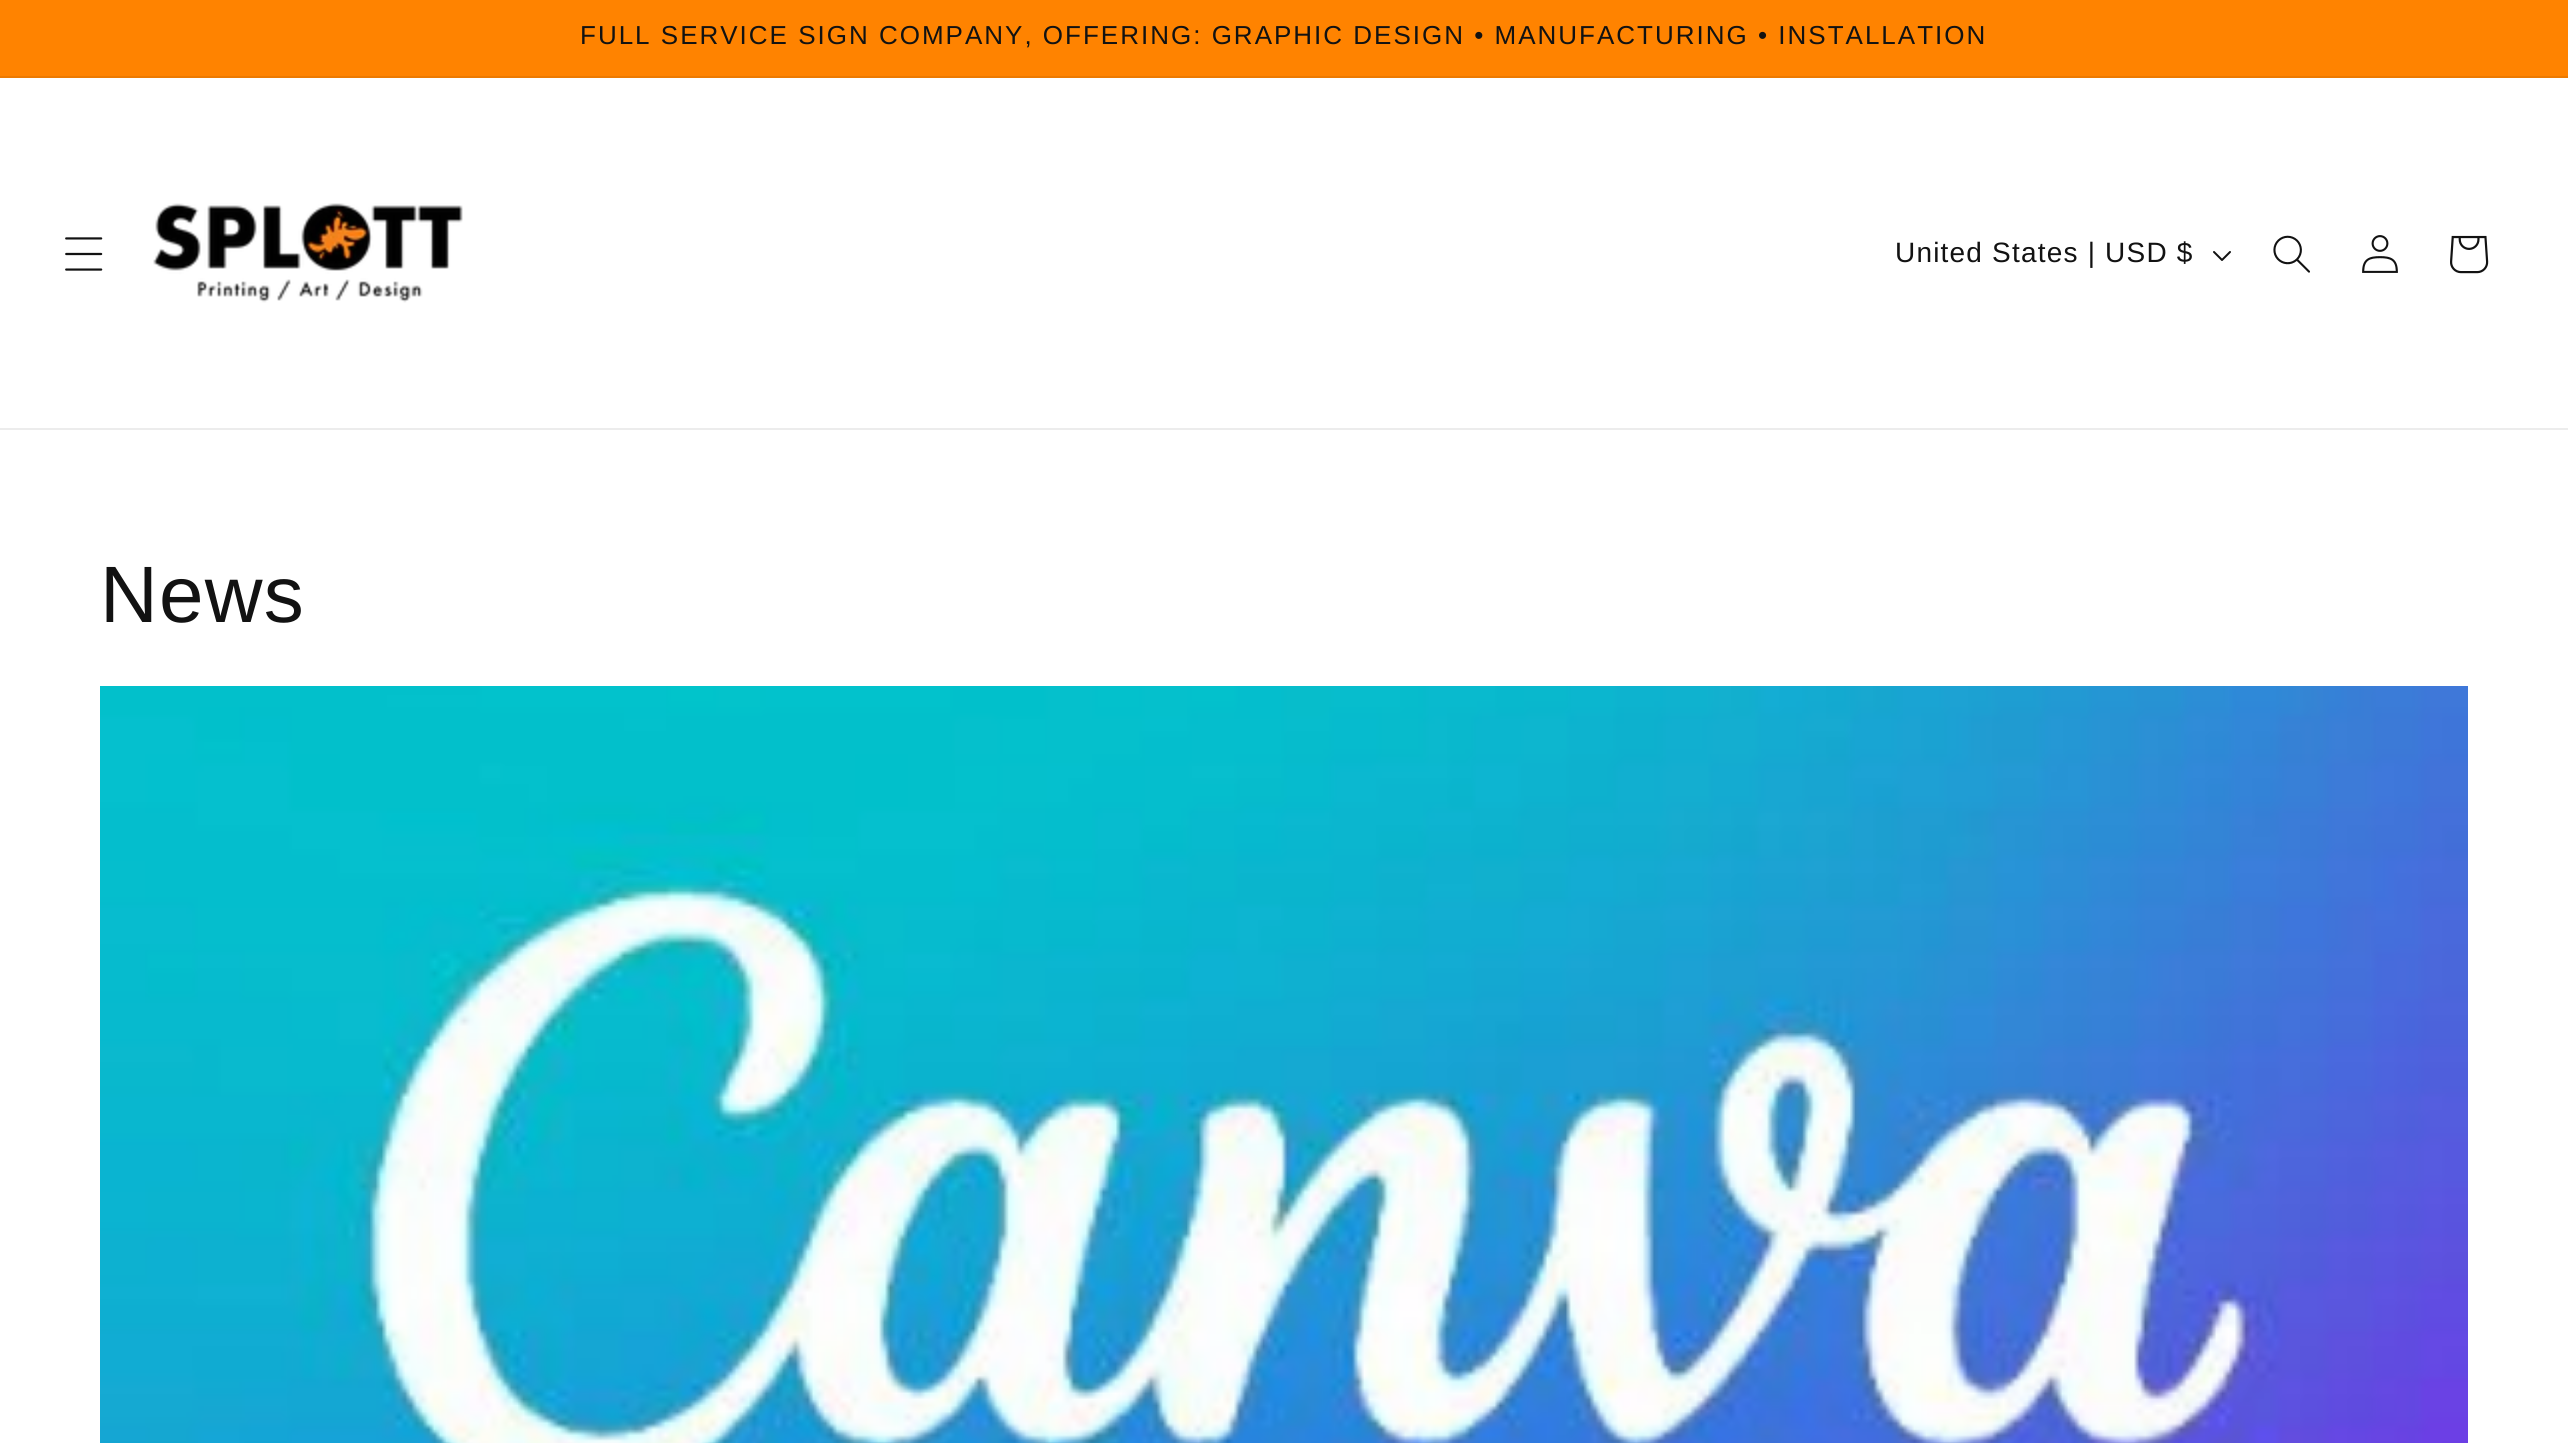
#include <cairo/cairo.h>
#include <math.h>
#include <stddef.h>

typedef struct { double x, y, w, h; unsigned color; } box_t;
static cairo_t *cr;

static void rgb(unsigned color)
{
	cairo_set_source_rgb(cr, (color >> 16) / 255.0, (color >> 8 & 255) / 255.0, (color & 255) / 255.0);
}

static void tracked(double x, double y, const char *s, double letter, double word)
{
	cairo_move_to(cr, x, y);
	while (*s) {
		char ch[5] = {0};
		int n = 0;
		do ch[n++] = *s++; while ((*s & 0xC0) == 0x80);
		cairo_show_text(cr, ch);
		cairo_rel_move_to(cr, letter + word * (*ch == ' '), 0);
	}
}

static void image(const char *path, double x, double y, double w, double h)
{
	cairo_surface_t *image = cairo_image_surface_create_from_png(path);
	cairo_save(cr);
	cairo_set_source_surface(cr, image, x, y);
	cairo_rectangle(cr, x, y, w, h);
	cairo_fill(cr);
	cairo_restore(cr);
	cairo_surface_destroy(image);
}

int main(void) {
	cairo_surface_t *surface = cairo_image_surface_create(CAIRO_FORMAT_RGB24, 2568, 1443);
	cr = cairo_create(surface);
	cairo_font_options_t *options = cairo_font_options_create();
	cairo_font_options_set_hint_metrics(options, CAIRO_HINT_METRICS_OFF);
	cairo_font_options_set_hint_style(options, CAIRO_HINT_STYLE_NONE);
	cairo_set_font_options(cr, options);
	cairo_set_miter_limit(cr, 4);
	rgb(0xffffff);
	cairo_paint(cr);
	{
		static const box_t items[] = {
			{0, 0, 2568, 76, 0xff8300},
			{0, 76, 2568, 2, 0xec7a01},
			{0, 428, 2568, 2, 0xececec},
		};
		for (size_t i = 0; i < sizeof items / sizeof *items; i++) {
			rgb(items[i].color);
			cairo_rectangle(cr, items[i].x, items[i].y, items[i].w, items[i].h);
			cairo_fill(cr);
		}
	}
	image("img/1.png", 65, 237, 38, 34);
	image("img/2.png", 153, 203, 310, 100);
	image("img/3.png", 2213, 251, 18, 10);
	image("img/4.png", 2273, 235, 37, 38);
	image("img/5.png", 2362, 235, 36, 38);
	image("img/6.png", 2450, 235, 39, 39);
	image("img/7.png", 100, 686, 2368, 757);
	cairo_select_font_face(cr, "Liberation Sans", CAIRO_FONT_SLANT_NORMAL, CAIRO_FONT_WEIGHT_NORMAL);
	cairo_set_font_size(cr, 26);
	rgb(0x121212);
	tracked(580, 44, "FULL SERVICE SIGN COMPANY, OFFERING: GRAPHIC DESIGN • MANUFACTURING • INSTALLATION", 2, 0);
	cairo_set_font_size(cr, 28);
	tracked(1895, 262, "United States | USD $", 1.2, 0);
	cairo_set_font_size(cr, 80);
	tracked(100, 622, "News", 1.2, 0);
	cairo_surface_write_to_png(surface, "page.png");
	cairo_font_options_destroy(options);
	cairo_destroy(cr);
	cairo_surface_destroy(surface);
	return 0;
}
